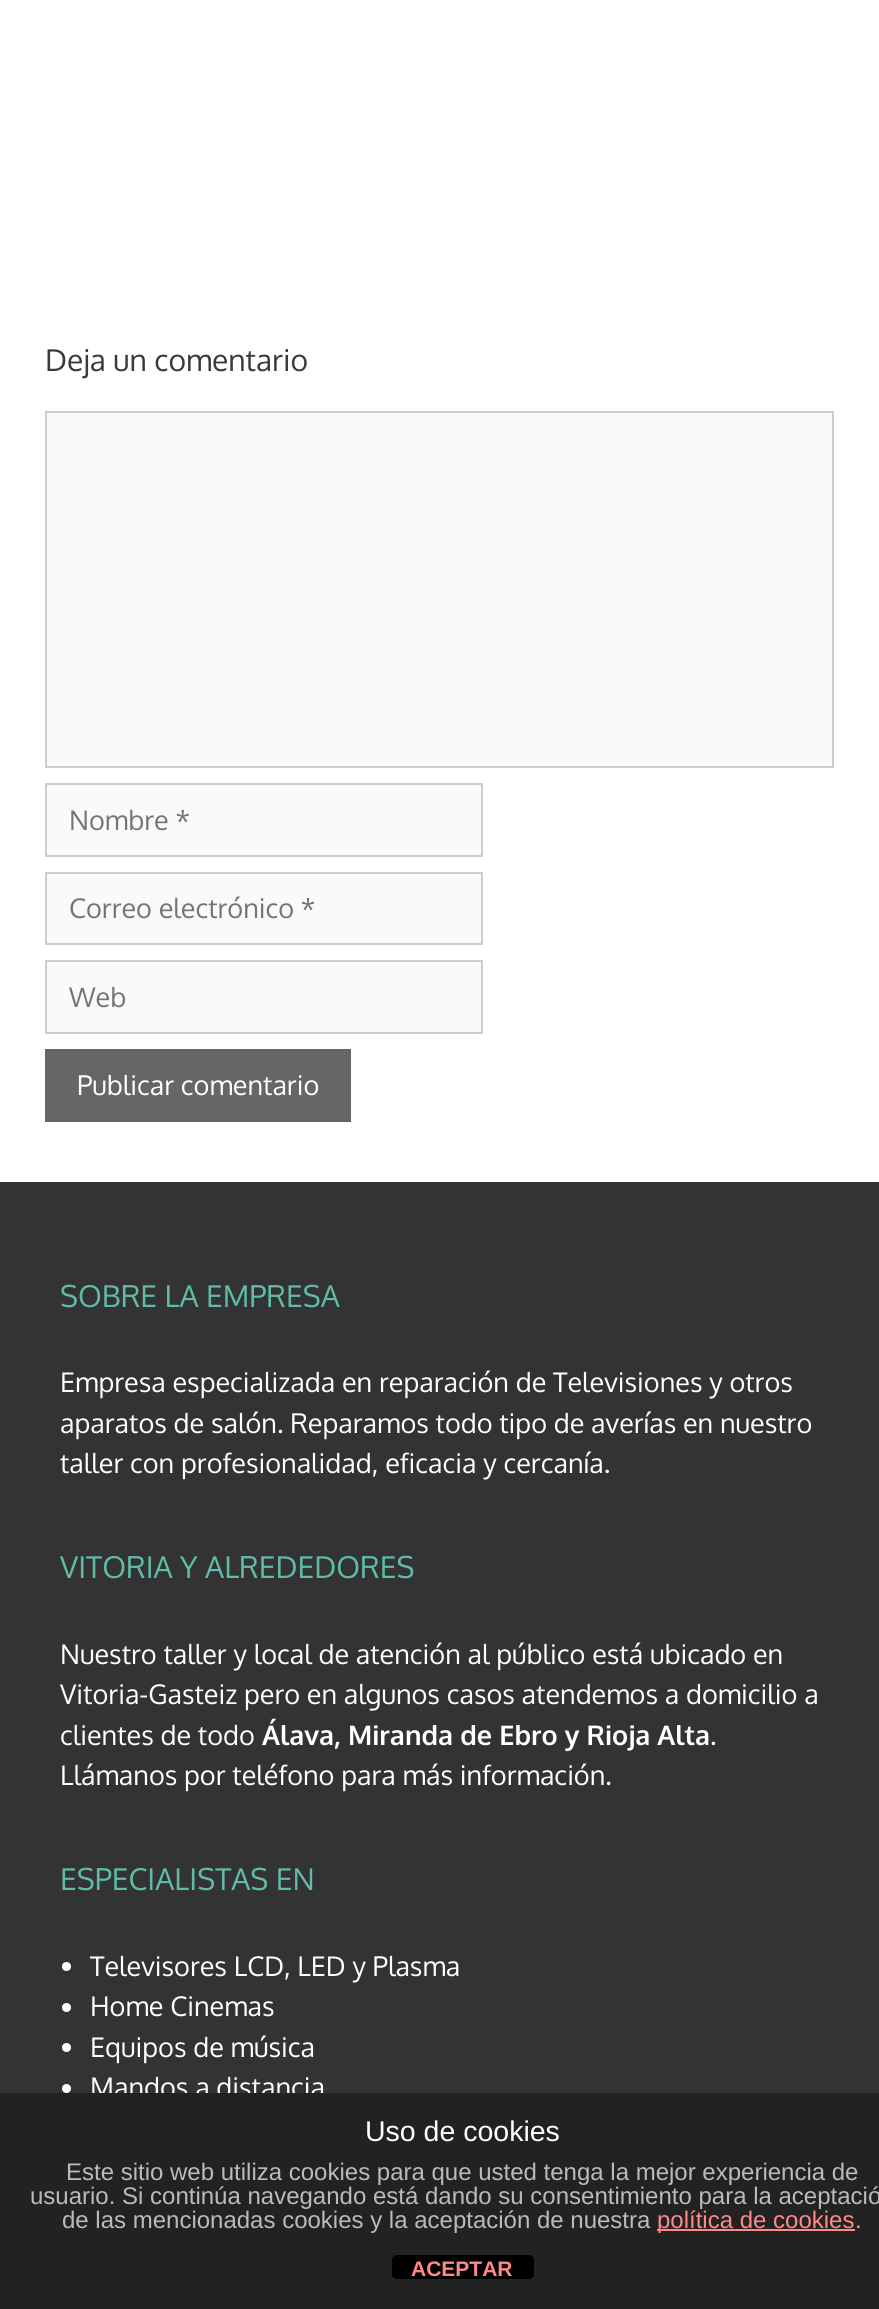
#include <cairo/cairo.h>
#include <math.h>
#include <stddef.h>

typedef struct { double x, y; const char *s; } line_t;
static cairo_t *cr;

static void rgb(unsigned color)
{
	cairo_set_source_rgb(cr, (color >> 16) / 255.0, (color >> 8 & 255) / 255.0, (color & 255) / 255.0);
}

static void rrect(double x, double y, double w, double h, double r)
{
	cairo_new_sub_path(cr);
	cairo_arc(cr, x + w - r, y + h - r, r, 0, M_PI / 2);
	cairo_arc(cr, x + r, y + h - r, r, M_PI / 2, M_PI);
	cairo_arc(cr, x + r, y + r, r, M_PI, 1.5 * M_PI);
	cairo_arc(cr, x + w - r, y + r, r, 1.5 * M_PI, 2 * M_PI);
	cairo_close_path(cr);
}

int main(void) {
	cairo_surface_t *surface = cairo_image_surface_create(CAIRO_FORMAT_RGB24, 879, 2309);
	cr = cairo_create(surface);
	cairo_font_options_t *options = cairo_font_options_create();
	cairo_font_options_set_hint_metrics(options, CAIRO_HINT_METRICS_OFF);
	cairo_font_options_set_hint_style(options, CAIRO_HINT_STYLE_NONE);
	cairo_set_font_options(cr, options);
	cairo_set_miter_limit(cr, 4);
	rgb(0xffffff);
	cairo_paint(cr);
	rgb(0xfafafa);
	cairo_rectangle(cr, 46, 412, 787, 355);
	cairo_fill_preserve(cr);
	rgb(0xcccccc);
	cairo_stroke(cr);
	rgb(0xfafafa);
	cairo_rectangle(cr, 46, 784, 436, 72);
	cairo_fill_preserve(cr);
	rgb(0xcccccc);
	cairo_stroke(cr);
	rgb(0xfafafa);
	cairo_rectangle(cr, 46, 873, 436, 71);
	cairo_fill_preserve(cr);
	rgb(0xcccccc);
	cairo_stroke(cr);
	rgb(0xfafafa);
	cairo_rectangle(cr, 46, 961, 436, 72);
	cairo_fill_preserve(cr);
	rgb(0xcccccc);
	cairo_stroke(cr);
	rgb(0x666666);
	cairo_rectangle(cr, 45, 1049, 306, 73);
	cairo_fill(cr);
	rgb(0x333333);
	cairo_rectangle(cr, 0, 1182, 879, 911);
	cairo_fill(cr);
	rgb(0xffffff);
	cairo_arc(cr, 66.5, 1966.5, 4.5, 0, 2 * M_PI);
	cairo_fill(cr);
	cairo_arc(cr, 66.5, 2007.5, 4.5, 0, 2 * M_PI);
	cairo_fill(cr);
	cairo_arc(cr, 66.5, 2047.5, 4.5, 0, 2 * M_PI);
	cairo_fill(cr);
	cairo_arc(cr, 66.5, 2088.5, 4.5, 0, 2 * M_PI);
	cairo_fill(cr);
	cairo_select_font_face(cr, "Oxygen", CAIRO_FONT_SLANT_NORMAL, CAIRO_FONT_WEIGHT_NORMAL);
	cairo_set_font_size(cr, 30);
	rgb(0x3a3a3a);
	cairo_move_to(cr, 45, 371);
	cairo_show_text(cr, "Deja un comentario");
	cairo_set_font_size(cr, 27);
	rgb(0x757575);
	{
		static const line_t items[] = {
			{69, 830, "Nombre *"},
			{69, 918, "Correo electrónico *"},
			{69, 1007, "Web"},
		};
		for (size_t i = 0; i < sizeof items / sizeof *items; i++) {
			cairo_move_to(cr, items[i].x, items[i].y);
			cairo_show_text(cr, items[i].s);
		}
	}
	rgb(0xffffff);
	cairo_move_to(cr, 77, 1095);
	cairo_show_text(cr, "Publicar comentario");
	cairo_set_font_size(cr, 30);
	rgb(0x5ebca9);
	cairo_move_to(cr, 60, 1307);
	cairo_show_text(cr, "SOBRE LA EMPRESA");
	cairo_set_font_size(cr, 27);
	rgb(0xffffff);
	{
		static const line_t items[] = {
			{60, 1392, "Empresa especializada en reparación de Televisiones y otros"},
			{60, 1433, "aparatos de salón. Reparamos todo tipo de averías en nuestro"},
			{60, 1473, "taller con profesionalidad, eficacia y cercanía."},
		};
		for (size_t i = 0; i < sizeof items / sizeof *items; i++) {
			cairo_move_to(cr, items[i].x, items[i].y);
			cairo_show_text(cr, items[i].s);
		}
	}
	cairo_set_font_size(cr, 30);
	rgb(0x5ebca9);
	cairo_move_to(cr, 60, 1578);
	cairo_show_text(cr, "VITORIA Y ALREDEDORES");
	cairo_set_font_size(cr, 27);
	rgb(0xffffff);
	{
		static const line_t items[] = {
			{60, 1664, "Nuestro taller y local de atención al público está ubicado en"},
			{60, 1704, "Vitoria-Gasteiz pero en algunos casos atendemos a domicilio a"},
			{60, 1745, "clientes de todo"},
		};
		for (size_t i = 0; i < sizeof items / sizeof *items; i++) {
			cairo_move_to(cr, items[i].x, items[i].y);
			cairo_show_text(cr, items[i].s);
		}
	}
	cairo_select_font_face(cr, "Oxygen", CAIRO_FONT_SLANT_NORMAL, CAIRO_FONT_WEIGHT_BOLD);
	cairo_move_to(cr, 262, 1745);
	cairo_show_text(cr, "Álava, Miranda de Ebro y Rioja Alta");
	cairo_select_font_face(cr, "Oxygen", CAIRO_FONT_SLANT_NORMAL, CAIRO_FONT_WEIGHT_NORMAL);
	cairo_move_to(cr, 710, 1745);
	cairo_show_text(cr, ".");
	cairo_move_to(cr, 60, 1785);
	cairo_show_text(cr, "Llámanos por teléfono para más información.");
	cairo_set_font_size(cr, 30);
	rgb(0x5ebca9);
	cairo_move_to(cr, 60, 1890);
	cairo_show_text(cr, "ESPECIALISTAS EN");
	cairo_set_font_size(cr, 27);
	rgb(0xffffff);
	{
		static const line_t items[] = {
			{90, 1976, "Televisores LCD, LED y Plasma"},
			{90, 2016, "Home Cinemas"},
			{90, 2057, "Equipos de música"},
			{90, 2097, "Mandos a distancia"},
		};
		for (size_t i = 0; i < sizeof items / sizeof *items; i++) {
			cairo_move_to(cr, items[i].x, items[i].y);
			cairo_show_text(cr, items[i].s);
		}
	}
	rgb(0x222222);
	cairo_rectangle(cr, 0, 2093, 879, 216);
	cairo_fill(cr);
	cairo_select_font_face(cr, "Liberation Sans", CAIRO_FONT_SLANT_NORMAL, CAIRO_FONT_WEIGHT_NORMAL);
	cairo_set_font_size(cr, 28.5);
	rgb(0xffffff);
	cairo_move_to(cr, 365, 2141);
	cairo_show_text(cr, "Uso de cookies");
	cairo_set_font_size(cr, 24);
	rgb(0xbbbbbb);
	{
		static const line_t items[] = {
			{66, 2180, "Este sitio web utiliza cookies para que usted tenga la mejor experiencia de"},
			{30, 2204, "usuario. Si continúa navegando está dando su consentimiento para la aceptació"},
			{62, 2228, "de las mencionadas cookies y la aceptación de nuestra"},
		};
		for (size_t i = 0; i < sizeof items / sizeof *items; i++) {
			cairo_move_to(cr, items[i].x, items[i].y);
			cairo_show_text(cr, items[i].s);
		}
	}
	rgb(0xff8888);
	cairo_rectangle(cr, 657, 2229, 198, 2);
	cairo_fill(cr);
	cairo_move_to(cr, 657, 2228);
	cairo_show_text(cr, "política de cookies");
	rgb(0xbbbbbb);
	cairo_move_to(cr, 855, 2228);
	cairo_show_text(cr, ".");
	rgb(0x000000);
	rrect(392, 2255, 142, 24, 5);
	cairo_fill(cr);
	cairo_select_font_face(cr, "Liberation Sans", CAIRO_FONT_SLANT_NORMAL, CAIRO_FONT_WEIGHT_BOLD);
	cairo_set_font_size(cr, 21);
	rgb(0xff8888);
	cairo_move_to(cr, 411, 2276);
	cairo_show_text(cr, "ACEPTAR");
	cairo_surface_write_to_png(surface, "page.png");
	cairo_font_options_destroy(options);
	cairo_destroy(cr);
	cairo_surface_destroy(surface);
	return 0;
}
